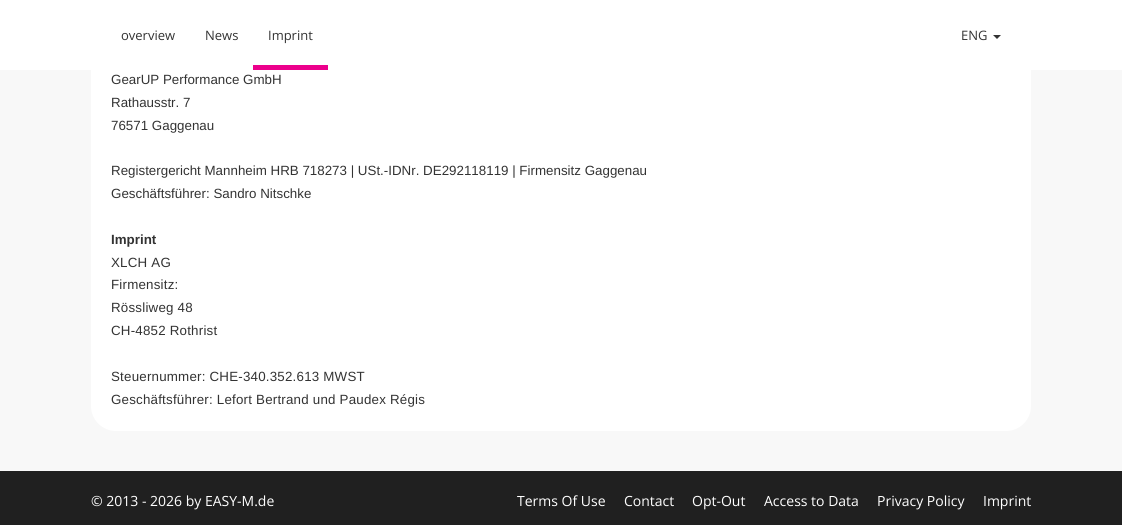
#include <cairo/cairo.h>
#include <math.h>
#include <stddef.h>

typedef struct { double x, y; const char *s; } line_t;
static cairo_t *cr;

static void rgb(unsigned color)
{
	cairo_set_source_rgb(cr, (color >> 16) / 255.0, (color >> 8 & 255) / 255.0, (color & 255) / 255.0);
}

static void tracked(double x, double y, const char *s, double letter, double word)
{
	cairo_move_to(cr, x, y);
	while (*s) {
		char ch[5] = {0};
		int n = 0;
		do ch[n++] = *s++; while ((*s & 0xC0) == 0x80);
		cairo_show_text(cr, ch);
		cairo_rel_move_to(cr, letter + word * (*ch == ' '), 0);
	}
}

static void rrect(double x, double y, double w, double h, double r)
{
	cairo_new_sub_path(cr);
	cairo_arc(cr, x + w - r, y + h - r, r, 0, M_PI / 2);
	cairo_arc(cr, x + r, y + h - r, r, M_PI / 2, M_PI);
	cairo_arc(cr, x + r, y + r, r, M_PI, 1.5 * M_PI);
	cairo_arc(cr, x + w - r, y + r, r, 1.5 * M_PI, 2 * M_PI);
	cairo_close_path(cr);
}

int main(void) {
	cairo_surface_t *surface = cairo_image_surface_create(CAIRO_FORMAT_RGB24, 1122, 525);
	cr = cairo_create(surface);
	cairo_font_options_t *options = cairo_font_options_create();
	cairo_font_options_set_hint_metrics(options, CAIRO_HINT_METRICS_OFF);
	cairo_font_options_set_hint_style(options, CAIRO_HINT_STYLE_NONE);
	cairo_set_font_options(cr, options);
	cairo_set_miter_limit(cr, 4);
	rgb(0xf8f8f8);
	cairo_paint(cr);
	rgb(0xffffff);
	rrect(91, 25, 940, 406, 25);
	cairo_fill(cr);
	cairo_rectangle(cr, 0, 0, 1122, 70);
	cairo_fill(cr);
	rgb(0xec008c);
	cairo_rectangle(cr, 253, 65, 75, 5);
	cairo_fill(cr);
	rgb(0x333333);
	cairo_new_path(cr);
	cairo_move_to(cr, 993, 35);
	cairo_line_to(cr, 1001, 35);
	cairo_line_to(cr, 997, 39);
	cairo_close_path(cr);
	cairo_fill(cr);
	rgb(0x202020);
	cairo_rectangle(cr, 0, 471, 1122, 54);
	cairo_fill(cr);
	cairo_select_font_face(cr, "Open Sans", CAIRO_FONT_SLANT_NORMAL, CAIRO_FONT_WEIGHT_NORMAL);
	cairo_set_font_size(cr, 13);
	rgb(0x333333);
	{
		static const line_t items[] = {
			{121, 40, "overview"},
			{205, 40, "News"},
			{268, 40, "Imprint"},
			{961, 40, "ENG"},
		};
		for (size_t i = 0; i < sizeof items / sizeof *items; i++) {
			cairo_move_to(cr, items[i].x, items[i].y);
			cairo_show_text(cr, items[i].s);
		}
	}
	cairo_select_font_face(cr, "Liberation Sans", CAIRO_FONT_SLANT_NORMAL, CAIRO_FONT_WEIGHT_NORMAL);
	cairo_set_font_size(cr, 13.35);
	{
		static const line_t items[] = {
			{111, 84, "GearUP Performance GmbH"},
			{111, 107, "Rathausstr. 7"},
			{111, 130, "76571 Gaggenau"},
			{111, 175, "Registergericht Mannheim HRB 718273 | USt.-IDNr. DE292118119 | Firmensitz Gaggenau"},
			{111, 198, "Geschäftsführer: Sandro Nitschke"},
		};
		for (size_t i = 0; i < sizeof items / sizeof *items; i++) {
			cairo_move_to(cr, items[i].x, items[i].y);
			cairo_show_text(cr, items[i].s);
		}
	}
	cairo_select_font_face(cr, "Liberation Sans", CAIRO_FONT_SLANT_NORMAL, CAIRO_FONT_WEIGHT_BOLD);
	cairo_move_to(cr, 111, 244);
	cairo_show_text(cr, "Imprint");
	cairo_select_font_face(cr, "Liberation Sans", CAIRO_FONT_SLANT_NORMAL, CAIRO_FONT_WEIGHT_NORMAL);
	{
		static const line_t items[] = {
			{111, 267, "XLCH AG"},
			{111, 289, "Firmensitz:"},
			{111, 312, "Rössliweg 48"},
			{111, 335, "CH-4852 Rothrist"},
			{111, 381, "Steuernummer: CHE-340.352.613 MWST"},
			{111, 404, "Geschäftsführer: Lefort Bertrand und Paudex Régis"},
		};
		for (size_t i = 0; i < sizeof items / sizeof *items; i++) {
			tracked(items[i].x, items[i].y, items[i].s, 0.2, 0);
		}
	}
	cairo_select_font_face(cr, "Open Sans", CAIRO_FONT_SLANT_NORMAL, CAIRO_FONT_WEIGHT_NORMAL);
	cairo_set_font_size(cr, 14);
	rgb(0xffffff);
	{
		static const line_t items[] = {
			{91, 506, "© 2013 - 2026 by EASY-M.de"},
			{517, 506, "Terms Of Use"},
			{624, 506, "Contact"},
			{692, 506, "Opt-Out"},
			{764, 506, "Access to Data"},
			{877, 506, "Privacy Policy"},
			{983, 506, "Imprint"},
		};
		for (size_t i = 0; i < sizeof items / sizeof *items; i++) {
			cairo_move_to(cr, items[i].x, items[i].y);
			cairo_show_text(cr, items[i].s);
		}
	}
	cairo_surface_write_to_png(surface, "page.png");
	cairo_font_options_destroy(options);
	cairo_destroy(cr);
	cairo_surface_destroy(surface);
	return 0;
}
